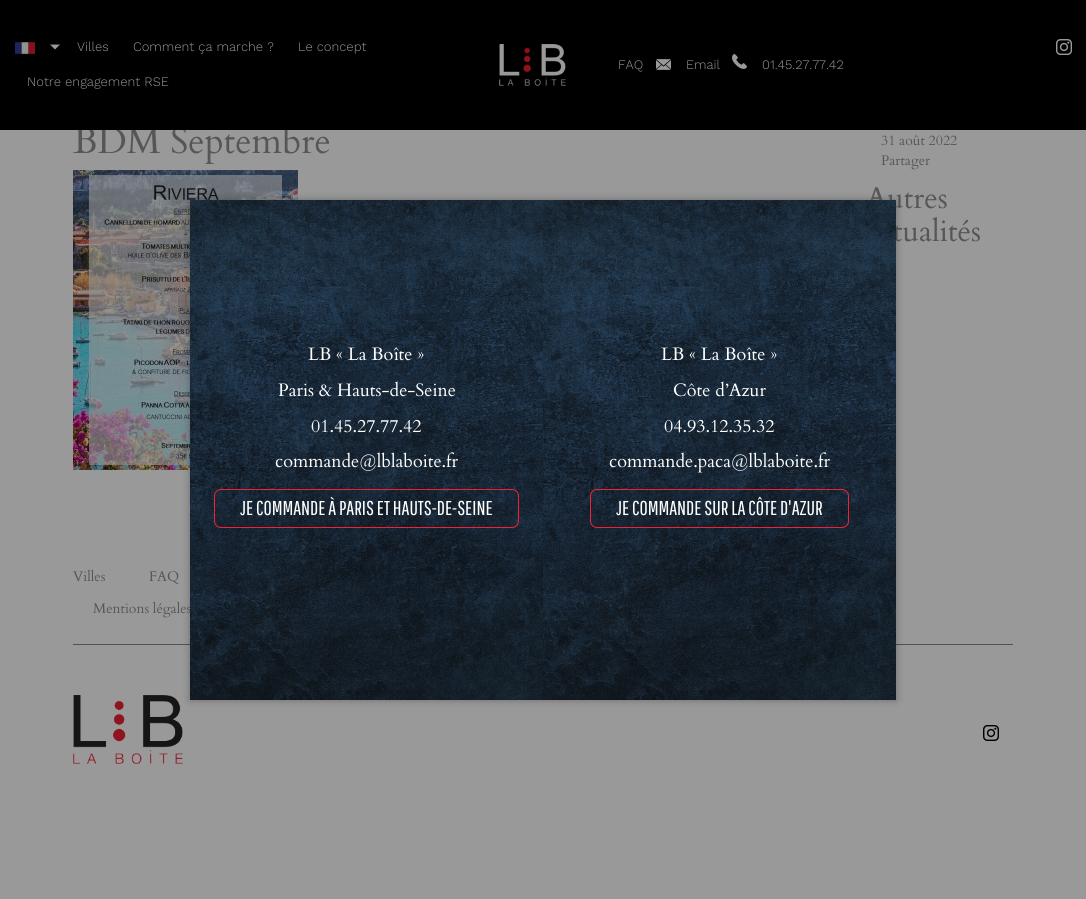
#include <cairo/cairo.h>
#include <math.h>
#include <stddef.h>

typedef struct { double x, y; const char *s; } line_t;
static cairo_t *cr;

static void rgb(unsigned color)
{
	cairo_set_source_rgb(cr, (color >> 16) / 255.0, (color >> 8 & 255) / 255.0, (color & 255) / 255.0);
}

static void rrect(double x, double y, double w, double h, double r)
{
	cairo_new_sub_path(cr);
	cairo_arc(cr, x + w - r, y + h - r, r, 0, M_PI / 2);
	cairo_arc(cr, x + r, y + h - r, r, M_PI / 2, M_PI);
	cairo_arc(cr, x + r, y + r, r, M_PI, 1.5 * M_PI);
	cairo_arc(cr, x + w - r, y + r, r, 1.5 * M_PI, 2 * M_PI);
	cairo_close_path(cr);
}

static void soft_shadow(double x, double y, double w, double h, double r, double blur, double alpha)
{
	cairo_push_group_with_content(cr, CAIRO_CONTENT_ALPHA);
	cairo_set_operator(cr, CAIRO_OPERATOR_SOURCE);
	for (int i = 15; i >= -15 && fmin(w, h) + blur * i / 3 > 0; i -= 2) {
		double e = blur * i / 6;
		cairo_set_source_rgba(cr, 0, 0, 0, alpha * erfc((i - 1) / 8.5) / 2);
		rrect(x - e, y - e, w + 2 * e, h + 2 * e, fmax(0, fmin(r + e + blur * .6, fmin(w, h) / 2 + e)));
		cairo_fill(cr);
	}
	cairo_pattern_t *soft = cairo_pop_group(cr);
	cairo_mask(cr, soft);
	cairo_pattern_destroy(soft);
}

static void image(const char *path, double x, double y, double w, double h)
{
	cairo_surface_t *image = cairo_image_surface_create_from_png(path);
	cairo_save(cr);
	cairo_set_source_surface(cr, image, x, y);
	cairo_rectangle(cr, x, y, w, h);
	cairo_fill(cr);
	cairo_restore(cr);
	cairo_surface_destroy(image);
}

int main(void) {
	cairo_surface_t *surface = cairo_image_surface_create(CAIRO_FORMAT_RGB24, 1086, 899);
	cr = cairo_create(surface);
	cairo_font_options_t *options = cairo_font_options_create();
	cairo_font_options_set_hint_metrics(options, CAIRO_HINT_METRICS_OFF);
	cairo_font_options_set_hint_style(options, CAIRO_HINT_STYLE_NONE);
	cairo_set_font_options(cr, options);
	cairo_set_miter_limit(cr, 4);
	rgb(0x999999);
	cairo_paint(cr);
	image("img/6.png", 73, 170, 225, 300);
	rgb(0x52515a);
	cairo_rectangle(cr, 73, 644, 940, 1);
	cairo_fill(cr);
	image("img/8.png", 73, 695, 110, 69);
	rgb(0x000000);
	soft_shadow(190, 200, 706, 500, 0, 4, 0.3);
	image("img/9.png", 983, 725, 16, 16);
	cairo_select_font_face(cr, "Cardo", CAIRO_FONT_SLANT_NORMAL, CAIRO_FONT_WEIGHT_NORMAL);
	cairo_set_font_size(cr, 36);
	rgb(0x565656);
	cairo_move_to(cr, 73, 153);
	cairo_show_text(cr, "BDM Septembre");
	rgb(0x000000);
	cairo_rectangle(cr, 0, 0, 1086, 130);
	cairo_fill(cr);
	image("img/3.png", 1056, 39, 16, 16);
	cairo_select_font_face(cr, "Work Sans Light", CAIRO_FONT_SLANT_NORMAL, CAIRO_FONT_WEIGHT_NORMAL);
	cairo_set_font_size(cr, 13);
	rgb(0x999999);
	cairo_move_to(cr, 762, 69);
	cairo_show_text(cr, "01.45.27.77.42");
	image("img/5.png", 732, 54, 15, 15);
	cairo_move_to(cr, 686, 69);
	cairo_show_text(cr, "Email");
	image("img/4.png", 656, 59, 15, 11);
	{
		static const line_t items[] = {
			{618, 69, "FAQ"},
			{27, 86, "Notre engagement RSE"},
			{298, 51, "Le concept"},
			{133, 51, "Comment ça marche ?"},
			{77, 51, "Villes"},
		};
		for (size_t i = 0; i < sizeof items / sizeof *items; i++) {
			cairo_move_to(cr, items[i].x, items[i].y);
			cairo_show_text(cr, items[i].s);
		}
	}
	cairo_new_path(cr);
	cairo_move_to(cr, 50, 44.5);
	cairo_line_to(cr, 60, 44.5);
	cairo_line_to(cr, 55, 49.5);
	cairo_close_path(cr);
	cairo_fill(cr);
	image("img/1.png", 15, 42, 20, 13);
	image("img/2.png", 499, 44, 67, 42);
	cairo_select_font_face(cr, "Cardo", CAIRO_FONT_SLANT_NORMAL, CAIRO_FONT_WEIGHT_NORMAL);
	cairo_set_font_size(cr, 14);
	rgb(0x565656);
	cairo_move_to(cr, 881, 145);
	cairo_show_text(cr, "31 août 2022");
	cairo_move_to(cr, 881, 165);
	cairo_show_text(cr, "Partager");
	cairo_set_font_size(cr, 30);
	cairo_move_to(cr, 866, 208);
	cairo_show_text(cr, "Autres");
	cairo_move_to(cr, 893, 241);
	cairo_show_text(cr, "tualités");
	image("img/7.png", 543, 200, 353, 500);
	cairo_set_font_size(cr, 18);
	rgb(0xffffff);
	{
		static const line_t items[] = {
			{661, 360, "LB « La Boîte »"},
			{673, 396, "Côte d’Azur"},
			{664, 432, "04.93.12.35.32"},
			{609, 467, "commande.paca@lblaboite.fr"},
		};
		for (size_t i = 0; i < sizeof items / sizeof *items; i++) {
			cairo_move_to(cr, items[i].x, items[i].y);
			cairo_show_text(cr, items[i].s);
		}
	}
	rrect(590.5, 489.5, 258, 38, 6.5);
	rgb(0xf02233);
	cairo_set_line_width(cr, 1);
	cairo_stroke(cr);
	cairo_select_font_face(cr, "Pathway Gothic One", CAIRO_FONT_SLANT_NORMAL, CAIRO_FONT_WEIGHT_NORMAL);
	cairo_set_font_size(cr, 20);
	rgb(0xffffff);
	cairo_move_to(cr, 616, 515);
	cairo_show_text(cr, "JE COMMANDE SUR LA CÔTE D'AZUR");
	cairo_select_font_face(cr, "Cardo", CAIRO_FONT_SLANT_NORMAL, CAIRO_FONT_WEIGHT_NORMAL);
	cairo_set_font_size(cr, 14);
	rgb(0x565656);
	{
		static const line_t items[] = {
			{73, 581, "Villes"},
			{149, 581, "FAQ"},
			{93, 613, "Mentions légales"},
		};
		for (size_t i = 0; i < sizeof items / sizeof *items; i++) {
			cairo_move_to(cr, items[i].x, items[i].y);
			cairo_show_text(cr, items[i].s);
		}
	}
	image("img/7.png", 190, 200, 353, 500);
	rrect(214.5, 489.5, 304, 38, 6.5);
	rgb(0xf02233);
	cairo_stroke(cr);
	cairo_select_font_face(cr, "Pathway Gothic One", CAIRO_FONT_SLANT_NORMAL, CAIRO_FONT_WEIGHT_NORMAL);
	cairo_set_font_size(cr, 20);
	rgb(0xffffff);
	cairo_move_to(cr, 240, 515);
	cairo_show_text(cr, "JE COMMANDE À PARIS ET HAUTS-DE-SEINE");
	cairo_select_font_face(cr, "Cardo", CAIRO_FONT_SLANT_NORMAL, CAIRO_FONT_WEIGHT_NORMAL);
	cairo_set_font_size(cr, 18);
	{
		static const line_t items[] = {
			{275, 467, "commande@lblaboite.fr"},
			{311, 432, "01.45.27.77.42"},
			{278, 396, "Paris & Hauts-de-Seine"},
			{308, 360, "LB « La Boîte »"},
		};
		for (size_t i = 0; i < sizeof items / sizeof *items; i++) {
			cairo_move_to(cr, items[i].x, items[i].y);
			cairo_show_text(cr, items[i].s);
		}
	}
	cairo_surface_write_to_png(surface, "page.png");
	cairo_font_options_destroy(options);
	cairo_destroy(cr);
	cairo_surface_destroy(surface);
	return 0;
}
